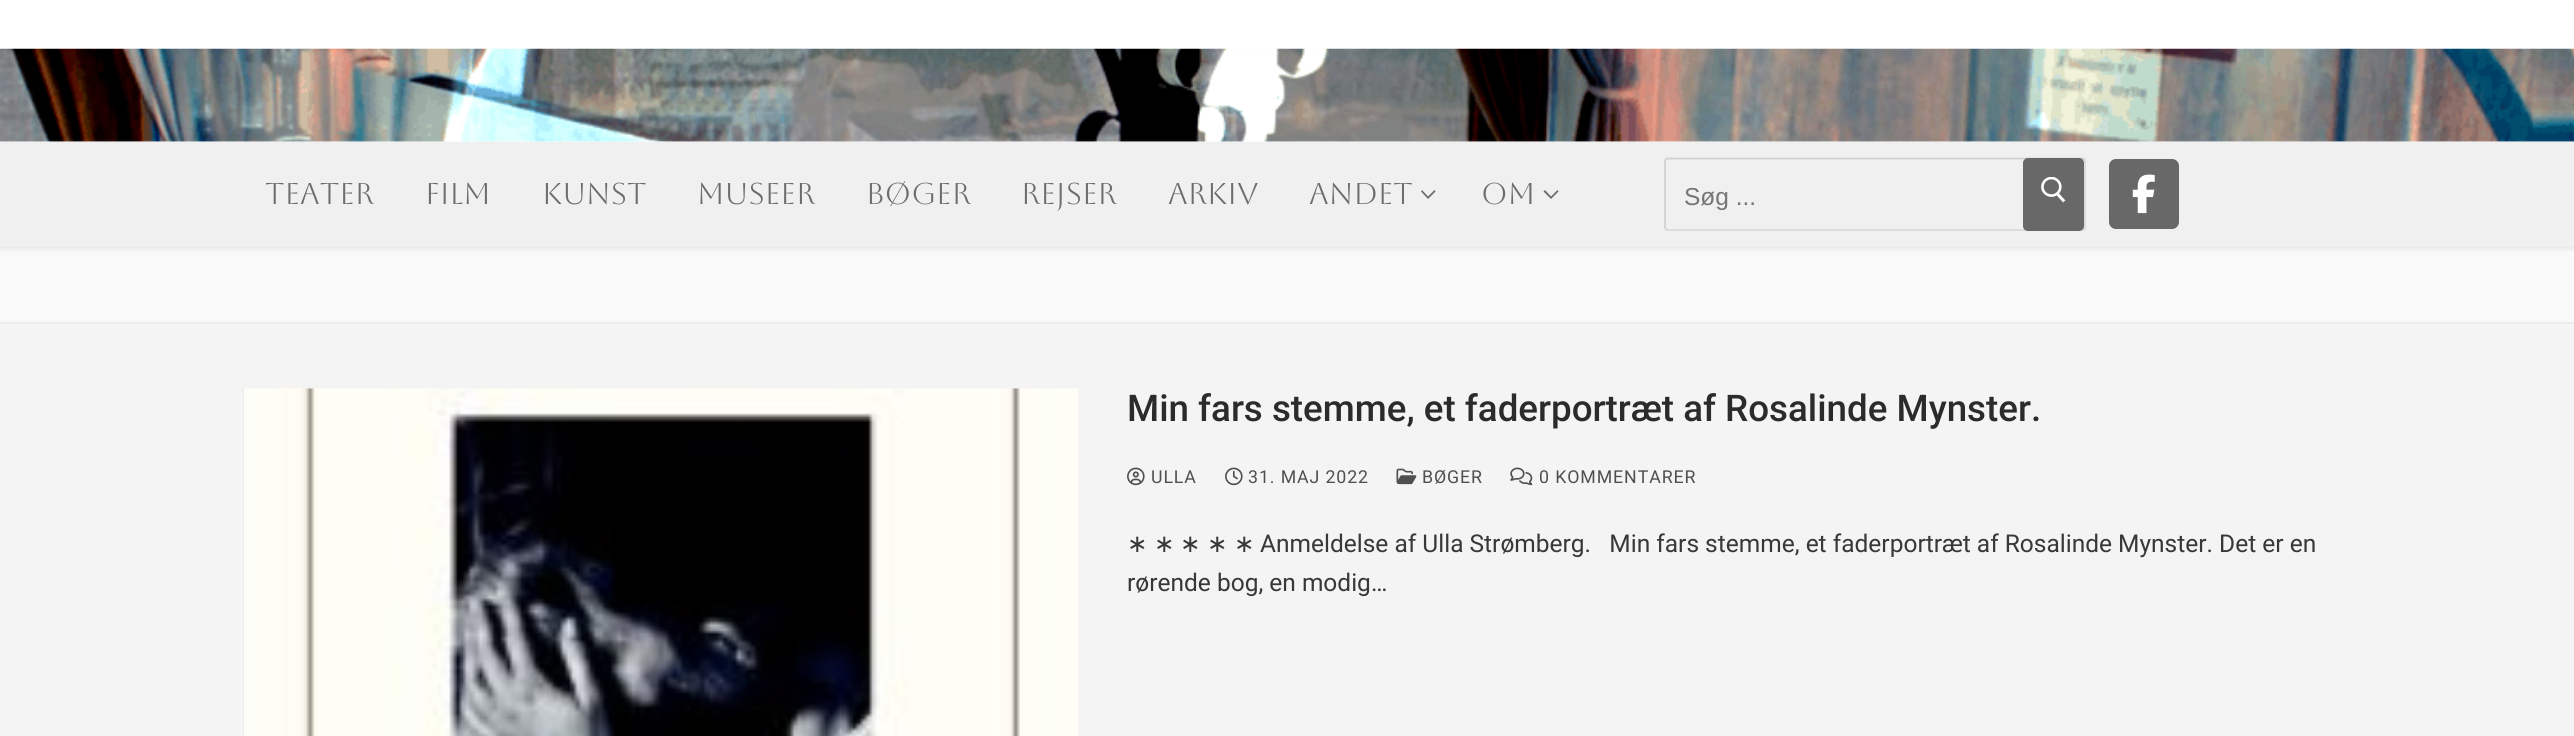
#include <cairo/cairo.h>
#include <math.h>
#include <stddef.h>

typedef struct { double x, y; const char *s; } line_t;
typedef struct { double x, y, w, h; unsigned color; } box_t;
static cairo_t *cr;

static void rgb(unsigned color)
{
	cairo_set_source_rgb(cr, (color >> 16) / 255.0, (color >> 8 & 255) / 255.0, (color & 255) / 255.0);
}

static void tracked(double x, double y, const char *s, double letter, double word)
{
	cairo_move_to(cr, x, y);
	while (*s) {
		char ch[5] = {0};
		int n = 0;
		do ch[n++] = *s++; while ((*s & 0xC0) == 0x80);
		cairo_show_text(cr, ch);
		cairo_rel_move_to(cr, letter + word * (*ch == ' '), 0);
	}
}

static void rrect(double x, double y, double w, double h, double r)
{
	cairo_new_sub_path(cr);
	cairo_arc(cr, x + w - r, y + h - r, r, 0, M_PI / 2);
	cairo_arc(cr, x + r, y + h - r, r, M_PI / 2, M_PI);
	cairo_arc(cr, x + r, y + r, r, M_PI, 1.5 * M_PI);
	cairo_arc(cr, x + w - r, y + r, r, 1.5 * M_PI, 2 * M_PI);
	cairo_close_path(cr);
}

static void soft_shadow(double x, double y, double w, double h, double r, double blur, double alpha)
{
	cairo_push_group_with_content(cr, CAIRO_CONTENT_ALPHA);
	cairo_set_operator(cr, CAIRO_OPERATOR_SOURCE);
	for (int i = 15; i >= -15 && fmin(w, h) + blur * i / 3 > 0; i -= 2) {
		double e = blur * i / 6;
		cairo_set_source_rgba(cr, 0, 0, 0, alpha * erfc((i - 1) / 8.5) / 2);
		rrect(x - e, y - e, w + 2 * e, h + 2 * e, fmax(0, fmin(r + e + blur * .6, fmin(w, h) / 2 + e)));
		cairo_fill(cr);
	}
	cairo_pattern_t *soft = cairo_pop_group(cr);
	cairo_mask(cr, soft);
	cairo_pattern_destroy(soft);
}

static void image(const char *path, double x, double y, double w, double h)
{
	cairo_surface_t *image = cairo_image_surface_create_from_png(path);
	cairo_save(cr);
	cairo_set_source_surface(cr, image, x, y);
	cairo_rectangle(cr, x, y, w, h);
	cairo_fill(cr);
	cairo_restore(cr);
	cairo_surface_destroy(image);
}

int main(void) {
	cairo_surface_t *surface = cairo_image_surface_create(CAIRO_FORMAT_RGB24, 2574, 736);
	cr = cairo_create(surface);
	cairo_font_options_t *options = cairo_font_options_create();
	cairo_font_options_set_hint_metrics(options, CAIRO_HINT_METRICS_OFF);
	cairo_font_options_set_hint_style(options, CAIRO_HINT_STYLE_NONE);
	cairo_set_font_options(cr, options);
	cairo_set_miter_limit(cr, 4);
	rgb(0xffffff);
	cairo_paint(cr);
	rgb(0xe1e5ea);
	soft_shadow(0, 51, 2574, 93, 0, 2, 1);
	rgb(0xffffff);
	cairo_rectangle(cr, 0, 141, 2574, 1);
	cairo_fill(cr);
	image("img/1.png", 0, 48, 2574, 94);
	rgb(0xf9f9f9);
	cairo_rectangle(cr, 0, 247, 2574, 75);
	cairo_fill(cr);
	rgb(0xe1e5ea);
	soft_shadow(0, 144, 2574, 105, 0, 2, 1);
	rgb(0xf0f0f0);
	cairo_rectangle(cr, 0, 142, 2574, 105);
	cairo_fill(cr);
	rgb(0x6c6c6c);
	cairo_new_path(cr);
	cairo_move_to(cr, 1428, 199);
	cairo_line_to(cr, 1421, 191.5);
	cairo_line_to(cr, 1422, 190);
	cairo_line_to(cr, 1428, 196.5);
	cairo_close_path(cr);
	cairo_move_to(cr, 1435.5, 191.5);
	cairo_line_to(cr, 1428, 199);
	cairo_line_to(cr, 1428, 196.5);
	cairo_line_to(cr, 1434.5, 190);
	cairo_close_path(cr);
	cairo_fill(cr);
	cairo_new_path(cr);
	cairo_move_to(cr, 1551, 199);
	cairo_line_to(cr, 1543.5, 191.5);
	cairo_line_to(cr, 1545, 190);
	cairo_line_to(cr, 1551, 196.5);
	cairo_close_path(cr);
	cairo_move_to(cr, 1558.5, 191.5);
	cairo_line_to(cr, 1551, 199);
	cairo_line_to(cr, 1551, 196.5);
	cairo_line_to(cr, 1557.5, 190);
	cairo_close_path(cr);
	cairo_fill(cr);
	cairo_new_path(cr);
	cairo_move_to(cr, 2084.5, 159);
	cairo_line_to(cr, 2085, 161);
	cairo_line_to(cr, 2085, 227.5);
	cairo_line_to(cr, 2084.5, 229.5);
	cairo_line_to(cr, 2082.5, 230);
	cairo_line_to(cr, 1668, 230);
	cairo_line_to(cr, 1666, 229.5);
	rgb(0xd9d9d9);
	cairo_set_line_width(cr, 1.8);
	cairo_stroke(cr);
	cairo_new_path(cr);
	cairo_move_to(cr, 1666, 229.5);
	cairo_line_to(cr, 1665, 227.5);
	cairo_line_to(cr, 1665, 161);
	cairo_line_to(cr, 1666, 159);
	cairo_line_to(cr, 1668, 158.5);
	cairo_line_to(cr, 2082.5, 158.5);
	cairo_line_to(cr, 2084.5, 159);
	cairo_set_source_rgba(cr, 0.333, 0.333, 0.333, 0.2);
	cairo_stroke(cr);
	rgb(0x686868);
	rrect(2023, 158, 61, 73, 5);
	cairo_fill(cr);
	image("img/2.png", 2041, 177, 25, 26);
	rrect(2109, 159, 70, 70, 7);
	cairo_fill(cr);
	image("img/3.png", 2132, 174, 23, 40);
	{
		static const box_t items[] = {
			{0, 322, 2574, 2, 0xeaecee},
			{0, 324, 2574, 412, 0xf4f4f4},
			{243, 389, 1, 347, 0xd5d5d5},
		};
		for (size_t i = 0; i < sizeof items / sizeof *items; i++) {
			rgb(items[i].color);
			cairo_rectangle(cr, items[i].x, items[i].y, items[i].w, items[i].h);
			cairo_fill(cr);
		}
	}
	image("img/4.png", 243, 388, 835, 348);
	image("img/5.png", 1127, 467, 18, 19);
	image("img/6.png", 1225, 467, 18, 19);
	image("img/7.png", 1396, 468, 21, 17);
	image("img/8.png", 1510, 467, 23, 19);
	cairo_select_font_face(cr, "Aboreto", CAIRO_FONT_SLANT_NORMAL, CAIRO_FONT_WEIGHT_NORMAL);
	cairo_set_font_size(cr, 30);
	rgb(0x6c6c6c);
	{
		static const line_t items[] = {
			{265, 204, "TEATER"},
			{425, 204, "FILM"},
			{542, 204, "KUNST"},
			{697, 204, "MUSEER"},
			{866, 204, "BØGER"},
			{1021, 204, "REJSER"},
			{1168, 204, "ARKIV"},
			{1309, 204, "ANDET"},
			{1481, 204, "OM"},
		};
		for (size_t i = 0; i < sizeof items / sizeof *items; i++) {
			cairo_move_to(cr, items[i].x, items[i].y);
			cairo_show_text(cr, items[i].s);
		}
	}
	cairo_select_font_face(cr, "Liberation Sans", CAIRO_FONT_SLANT_NORMAL, CAIRO_FONT_WEIGHT_NORMAL);
	cairo_set_font_size(cr, 24.5);
	rgb(0x757575);
	cairo_move_to(cr, 1684, 205);
	cairo_show_text(cr, "Søg ...");
	cairo_select_font_face(cr, "Roboto Medium", CAIRO_FONT_SLANT_NORMAL, CAIRO_FONT_WEIGHT_NORMAL);
	cairo_set_font_size(cr, 36.75);
	rgb(0x2b2b2b);
	cairo_move_to(cr, 1127, 421);
	cairo_show_text(cr, "Min fars stemme, et faderportræt af Rosalinde Mynster.");
	cairo_select_font_face(cr, "Roboto", CAIRO_FONT_SLANT_NORMAL, CAIRO_FONT_WEIGHT_NORMAL);
	cairo_set_font_size(cr, 17.75);
	rgb(0x4f4f4f);
	{
		static const line_t items[] = {
			{1151, 483, "ULLA"},
			{1248, 483, "31. MAJ 2022"},
			{1422, 483, "BØGER"},
			{1539, 483, "0 KOMMENTARER"},
		};
		for (size_t i = 0; i < sizeof items / sizeof *items; i++) {
			tracked(items[i].x, items[i].y, items[i].s, 0.9, 0);
		}
	}
	cairo_select_font_face(cr, "DejaVu Sans", CAIRO_FONT_SLANT_NORMAL, CAIRO_FONT_WEIGHT_NORMAL);
	cairo_set_font_size(cr, 24.5);
	rgb(0x383838);
	{
		static const line_t items[] = {
			{1127, 552, "∗"},
			{1154, 552, "∗"},
			{1180, 552, "∗"},
			{1207, 552, "∗"},
			{1234, 552, "∗"},
		};
		for (size_t i = 0; i < sizeof items / sizeof *items; i++) {
			cairo_move_to(cr, items[i].x, items[i].y);
			cairo_show_text(cr, items[i].s);
		}
	}
	cairo_select_font_face(cr, "Roboto", CAIRO_FONT_SLANT_NORMAL, CAIRO_FONT_WEIGHT_NORMAL);
	cairo_move_to(cr, 1260, 552);
	cairo_show_text(cr, "Anmeldelse af Ulla Strømberg.   Min fars stemme, et faderportræt af Rosalinde Mynster. Det er en");
	cairo_move_to(cr, 1127, 591);
	cairo_show_text(cr, "rørende bog, en modig…");
	cairo_surface_write_to_png(surface, "page.png");
	cairo_font_options_destroy(options);
	cairo_destroy(cr);
	cairo_surface_destroy(surface);
	return 0;
}
